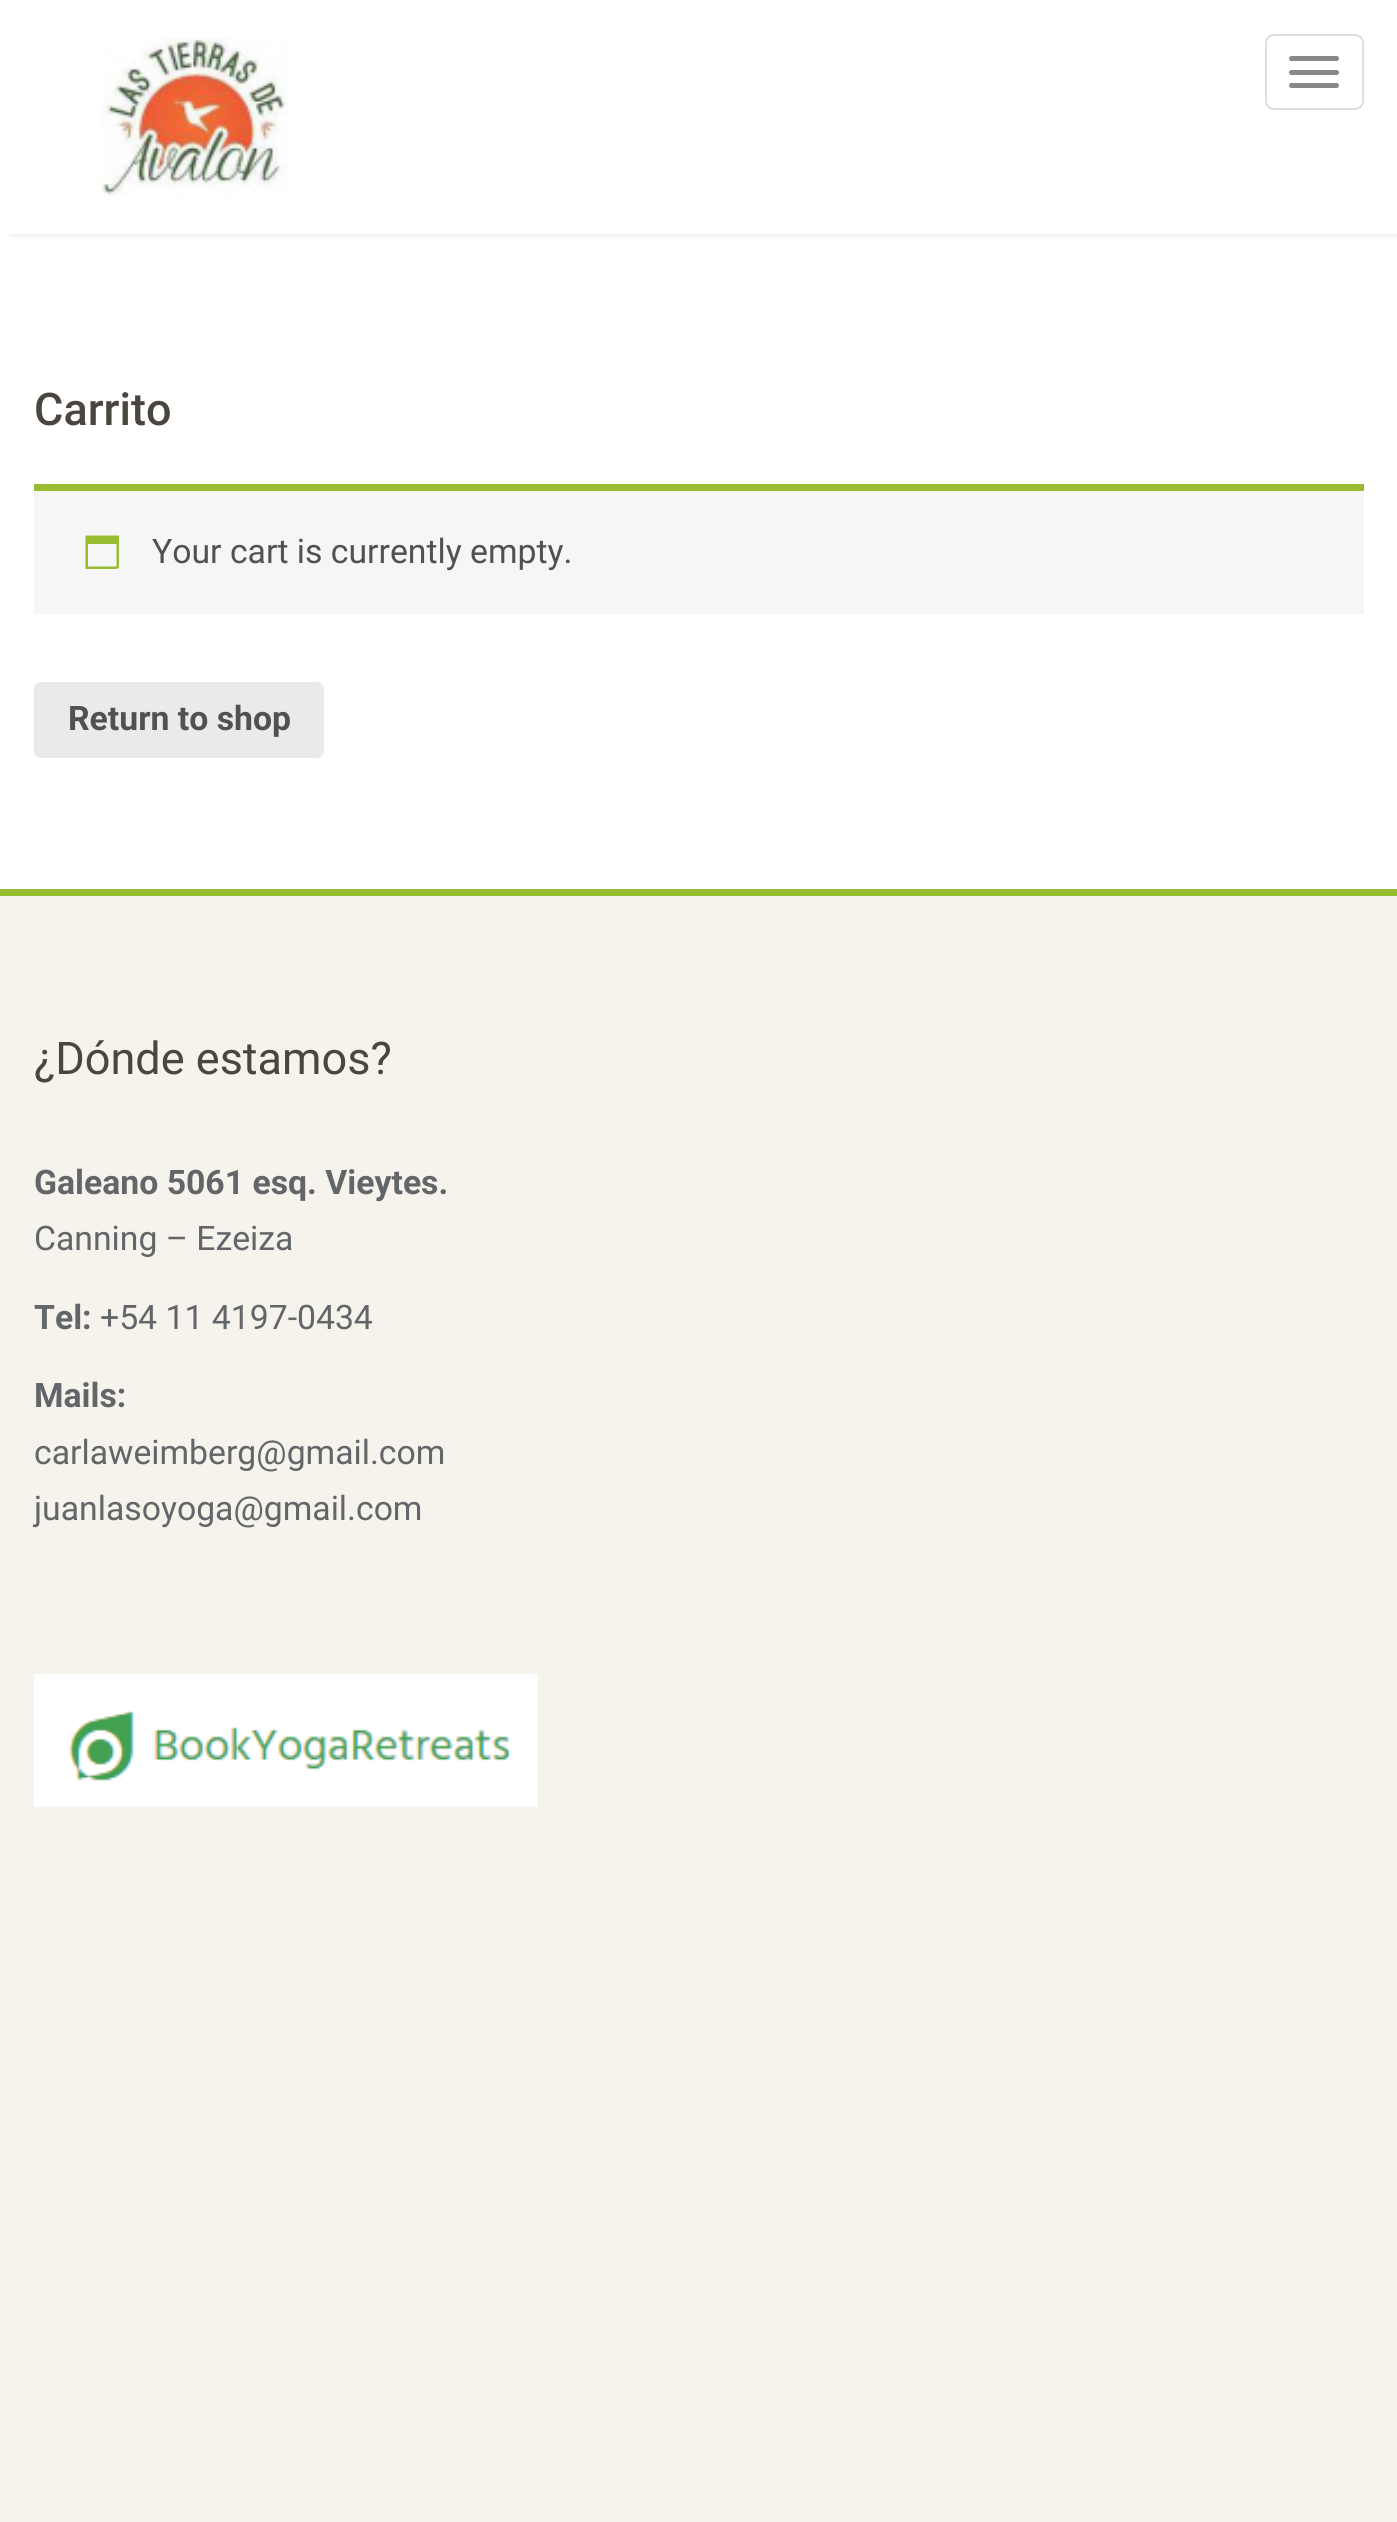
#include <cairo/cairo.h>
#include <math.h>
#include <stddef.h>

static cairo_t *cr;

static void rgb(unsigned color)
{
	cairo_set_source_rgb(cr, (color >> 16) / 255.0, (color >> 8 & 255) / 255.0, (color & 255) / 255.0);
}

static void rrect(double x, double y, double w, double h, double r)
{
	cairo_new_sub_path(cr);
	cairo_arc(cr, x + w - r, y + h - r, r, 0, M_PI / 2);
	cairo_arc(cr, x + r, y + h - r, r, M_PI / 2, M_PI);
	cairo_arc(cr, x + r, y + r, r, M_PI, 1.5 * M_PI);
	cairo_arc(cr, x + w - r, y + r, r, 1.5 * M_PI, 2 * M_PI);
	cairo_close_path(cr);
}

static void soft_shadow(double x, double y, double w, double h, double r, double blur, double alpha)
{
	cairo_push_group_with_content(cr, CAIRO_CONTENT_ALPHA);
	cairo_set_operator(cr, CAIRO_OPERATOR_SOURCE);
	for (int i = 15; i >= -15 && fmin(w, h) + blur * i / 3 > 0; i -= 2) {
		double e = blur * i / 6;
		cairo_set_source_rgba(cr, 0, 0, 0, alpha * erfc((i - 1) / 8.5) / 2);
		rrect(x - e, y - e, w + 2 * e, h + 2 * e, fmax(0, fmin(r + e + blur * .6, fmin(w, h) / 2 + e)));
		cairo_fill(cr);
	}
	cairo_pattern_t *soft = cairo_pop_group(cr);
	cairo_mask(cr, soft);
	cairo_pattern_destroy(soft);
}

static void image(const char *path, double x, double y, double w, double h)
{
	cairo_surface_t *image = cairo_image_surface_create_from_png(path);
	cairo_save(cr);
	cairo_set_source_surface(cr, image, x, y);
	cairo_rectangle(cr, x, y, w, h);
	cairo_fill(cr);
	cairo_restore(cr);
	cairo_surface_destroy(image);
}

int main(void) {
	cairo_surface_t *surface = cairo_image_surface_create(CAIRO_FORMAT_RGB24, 1397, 2522);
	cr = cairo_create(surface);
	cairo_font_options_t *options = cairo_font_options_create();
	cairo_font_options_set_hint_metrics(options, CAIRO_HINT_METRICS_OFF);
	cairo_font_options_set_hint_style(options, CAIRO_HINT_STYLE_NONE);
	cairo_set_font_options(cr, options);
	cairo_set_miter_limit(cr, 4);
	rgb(0xffffff);
	cairo_paint(cr);
	cairo_save(cr);
	cairo_rectangle(cr, 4, 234, 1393, 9);
	cairo_clip(cr);
	rgb(0xe8ecee);
	soft_shadow(11, 2, 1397, 234, 0, 3.5, 1);
	cairo_restore(cr);
	image("img/1.png", 101, 38, 188, 158);
	rrect(1266, 35, 97, 74, 8);
	rgb(0xdddddd);
	cairo_stroke(cr);
	rgb(0x888888);
	rrect(1289, 56, 50, 5, 2.5);
	cairo_fill(cr);
	rrect(1289, 70, 50, 5, 2.5);
	cairo_fill(cr);
	rrect(1289, 83, 50, 5, 2.5);
	cairo_fill(cr);
	rgb(0xf7f6f7);
	cairo_rectangle(cr, 34, 491, 1330, 123);
	cairo_fill(cr);
	rgb(0x97bc31);
	cairo_rectangle(cr, 34, 484, 1330, 7);
	cairo_fill(cr);
	cairo_new_path(cr);
	cairo_move_to(cr, 116.5, 544);
	cairo_line_to(cr, 88, 544);
	cairo_line_to(cr, 88, 566.5);
	cairo_line_to(cr, 116.5, 566.5);
	cairo_close_path(cr);
	cairo_move_to(cr, 119, 535.5);
	cairo_line_to(cr, 119, 561);
	cairo_curve_to(cr, 119, 569.5, 120, 569, 111.5, 569);
	cairo_line_to(cr, 85.5, 569);
	cairo_line_to(cr, 85.5, 535.5);
	cairo_close_path(cr);
	cairo_fill(cr);
	rgb(0xebe9eb);
	rrect(34, 682, 290, 76, 7);
	cairo_fill(cr);
	rgb(0x97bc31);
	cairo_rectangle(cr, 0, 889, 1397, 7);
	cairo_fill(cr);
	rgb(0xf6f2ec);
	cairo_rectangle(cr, 0, 896, 1397, 1626);
	cairo_fill(cr);
	image("img/2.png", 33, 1674, 505, 133);
	cairo_select_font_face(cr, "Roboto Medium", CAIRO_FONT_SLANT_NORMAL, CAIRO_FONT_WEIGHT_NORMAL);
	cairo_set_font_size(cr, 45);
	rgb(0x4b453f);
	cairo_move_to(cr, 34, 425);
	cairo_show_text(cr, "Carrito");
	cairo_select_font_face(cr, "Roboto", CAIRO_FONT_SLANT_NORMAL, CAIRO_FONT_WEIGHT_NORMAL);
	cairo_set_font_size(cr, 33.75);
	rgb(0x515151);
	cairo_move_to(cr, 152, 563);
	cairo_show_text(cr, "Your cart is currently empty.");
	cairo_select_font_face(cr, "Roboto", CAIRO_FONT_SLANT_NORMAL, CAIRO_FONT_WEIGHT_BOLD);
	cairo_move_to(cr, 68, 730);
	cairo_show_text(cr, "Return to shop");
	cairo_select_font_face(cr, "Roboto", CAIRO_FONT_SLANT_NORMAL, CAIRO_FONT_WEIGHT_NORMAL);
	cairo_set_font_size(cr, 45);
	rgb(0x4b453f);
	cairo_move_to(cr, 34, 1074);
	cairo_show_text(cr, "¿Dónde estamos?");
	cairo_select_font_face(cr, "Roboto", CAIRO_FONT_SLANT_NORMAL, CAIRO_FONT_WEIGHT_BOLD);
	cairo_set_font_size(cr, 33.75);
	rgb(0x626668);
	cairo_move_to(cr, 34, 1194);
	cairo_show_text(cr, "Galeano 5061 esq. Vieytes.");
	cairo_select_font_face(cr, "Roboto", CAIRO_FONT_SLANT_NORMAL, CAIRO_FONT_WEIGHT_NORMAL);
	cairo_move_to(cr, 34, 1250);
	cairo_show_text(cr, "Canning – Ezeiza");
	cairo_select_font_face(cr, "Roboto", CAIRO_FONT_SLANT_NORMAL, CAIRO_FONT_WEIGHT_BOLD);
	cairo_move_to(cr, 34, 1329);
	cairo_show_text(cr, "Tel:");
	cairo_select_font_face(cr, "Roboto", CAIRO_FONT_SLANT_NORMAL, CAIRO_FONT_WEIGHT_NORMAL);
	cairo_move_to(cr, 100, 1329);
	cairo_show_text(cr, "+54 11 4197-0434");
	cairo_select_font_face(cr, "Roboto", CAIRO_FONT_SLANT_NORMAL, CAIRO_FONT_WEIGHT_BOLD);
	cairo_move_to(cr, 34, 1407);
	cairo_show_text(cr, "Mails:");
	cairo_select_font_face(cr, "Roboto", CAIRO_FONT_SLANT_NORMAL, CAIRO_FONT_WEIGHT_NORMAL);
	cairo_move_to(cr, 34, 1464);
	cairo_show_text(cr, "carlaweimberg@gmail.com");
	cairo_move_to(cr, 34, 1520);
	cairo_show_text(cr, "juanlasoyoga@gmail.com");
	cairo_surface_write_to_png(surface, "page.png");
	cairo_font_options_destroy(options);
	cairo_destroy(cr);
	cairo_surface_destroy(surface);
	return 0;
}
